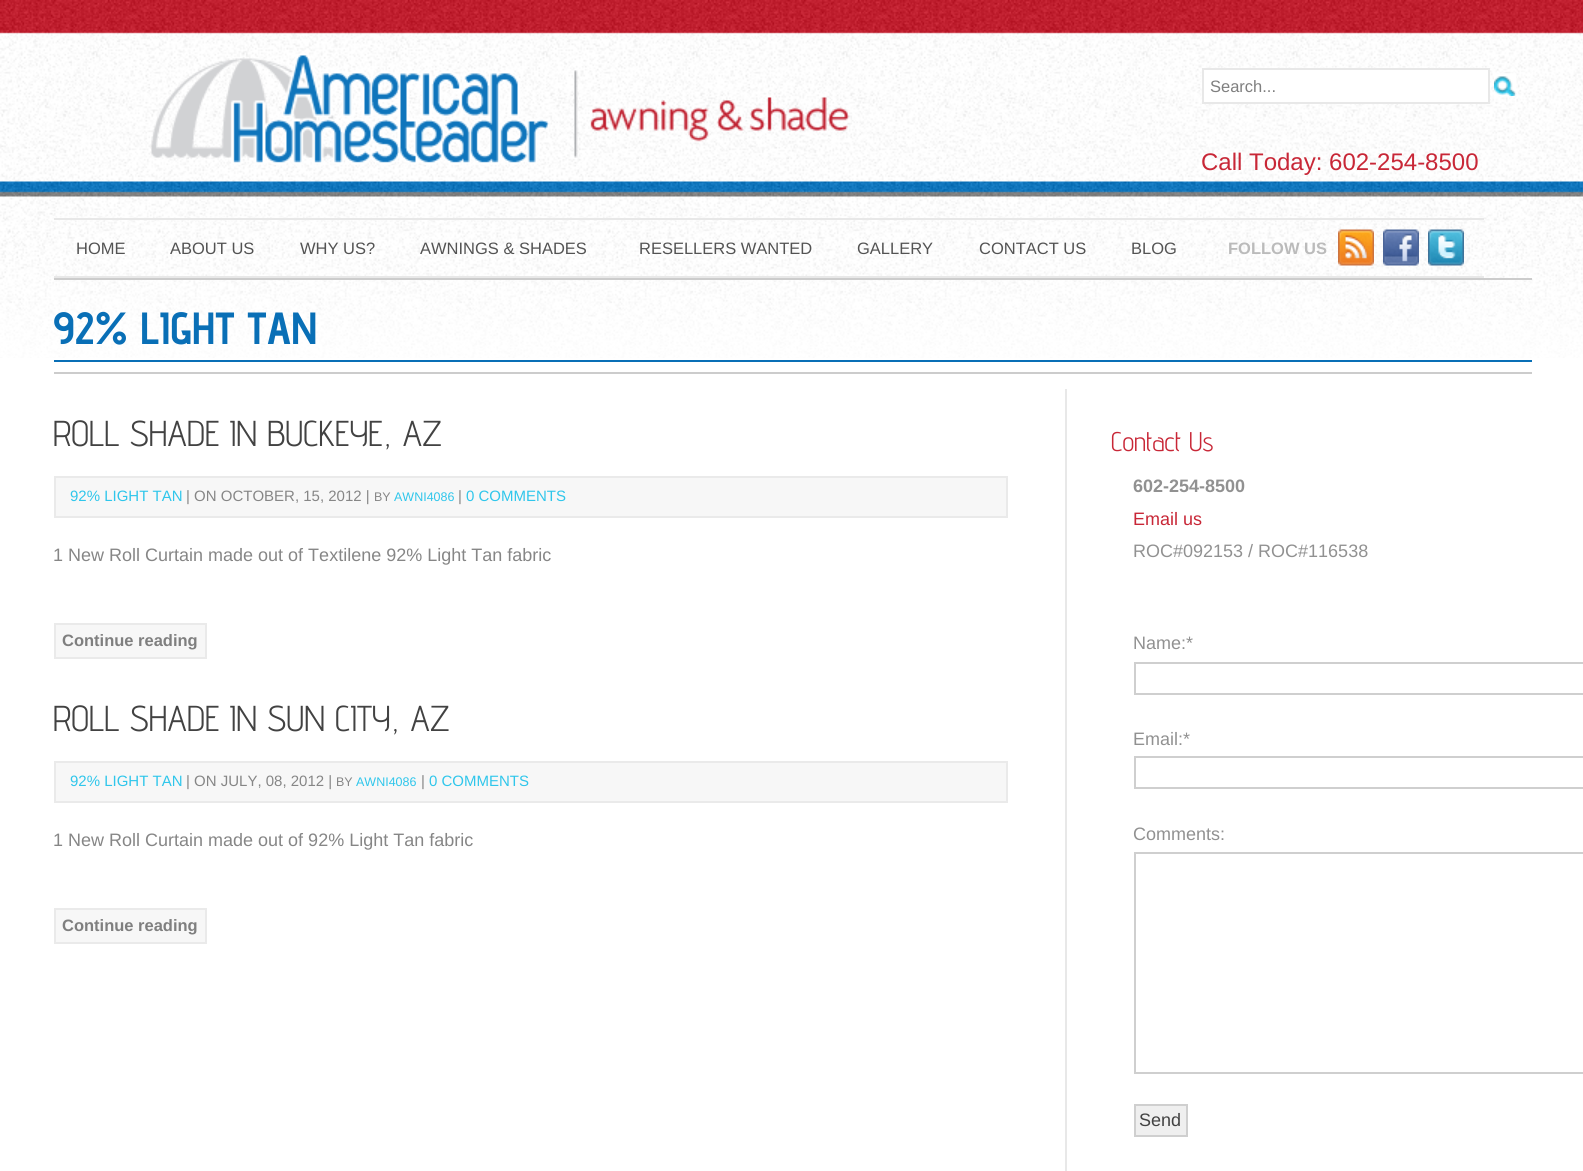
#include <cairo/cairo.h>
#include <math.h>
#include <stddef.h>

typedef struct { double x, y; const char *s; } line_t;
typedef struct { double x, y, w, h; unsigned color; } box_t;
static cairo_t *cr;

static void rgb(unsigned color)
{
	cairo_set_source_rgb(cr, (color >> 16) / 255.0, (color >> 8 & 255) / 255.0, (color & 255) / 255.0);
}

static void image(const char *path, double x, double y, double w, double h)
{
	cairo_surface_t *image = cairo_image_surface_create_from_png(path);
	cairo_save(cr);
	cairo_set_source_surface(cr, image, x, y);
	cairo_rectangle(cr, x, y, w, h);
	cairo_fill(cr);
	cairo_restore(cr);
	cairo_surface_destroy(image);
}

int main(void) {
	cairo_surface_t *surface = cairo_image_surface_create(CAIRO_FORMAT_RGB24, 1583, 1171);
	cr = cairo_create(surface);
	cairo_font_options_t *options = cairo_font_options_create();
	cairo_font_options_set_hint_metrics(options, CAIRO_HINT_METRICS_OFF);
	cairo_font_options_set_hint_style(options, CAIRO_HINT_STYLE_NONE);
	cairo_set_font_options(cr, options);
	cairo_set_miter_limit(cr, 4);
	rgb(0xffffff);
	cairo_paint(cr);
	image("img/1.png", 0, 0, 1583, 358);
	image("img/2.png", 151, 53, 699, 112);
	rgb(0xffffff);
	cairo_rectangle(cr, 1203, 69, 286, 34);
	cairo_fill_preserve(cr);
	rgb(0xe8e8e8);
	cairo_stroke(cr);
	image("img/3.png", 1494, 73, 22, 23);
	cairo_rectangle(cr, 54, 218, 1430, 2);
	cairo_fill(cr);
	cairo_rectangle(cr, 54, 276, 1430, 2);
	cairo_fill(cr);
	image("img/4.png", 1338, 229, 36, 37);
	image("img/5.png", 1383, 229, 36, 37);
	image("img/6.png", 1428, 229, 36, 37);
	{
		static const box_t items[] = {
			{54, 278, 1478, 2, 0xcccccc},
			{54, 372, 1478, 2, 0xcccccc},
			{54, 360, 1478, 2, 0x096fb6},
		};
		for (size_t i = 0; i < sizeof items / sizeof *items; i++) {
			rgb(items[i].color);
			cairo_rectangle(cr, items[i].x, items[i].y, items[i].w, items[i].h);
			cairo_fill(cr);
		}
	}
	rgb(0xf7f7f7);
	cairo_rectangle(cr, 55, 477, 952, 40);
	cairo_fill_preserve(cr);
	rgb(0xeaeaea);
	cairo_stroke(cr);
	rgb(0xf7f7f7);
	cairo_rectangle(cr, 55, 624, 151, 34);
	cairo_fill_preserve(cr);
	rgb(0xeaeaea);
	cairo_stroke(cr);
	rgb(0xf7f7f7);
	cairo_rectangle(cr, 55, 762, 952, 40);
	cairo_fill_preserve(cr);
	rgb(0xeaeaea);
	cairo_stroke(cr);
	rgb(0xf7f7f7);
	cairo_rectangle(cr, 55, 909, 151, 34);
	cairo_fill_preserve(cr);
	rgb(0xeaeaea);
	cairo_stroke(cr);
	rgb(0xe8e8e8);
	cairo_rectangle(cr, 1065, 389, 2, 782);
	cairo_fill(cr);
	cairo_rectangle(cr, 1135, 663, 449, 31);
	rgb(0xcfcfcf);
	cairo_stroke(cr);
	cairo_rectangle(cr, 1135, 757, 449, 31);
	cairo_stroke(cr);
	cairo_rectangle(cr, 1135, 853, 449, 220);
	cairo_stroke(cr);
	rgb(0xefefef);
	cairo_rectangle(cr, 1135, 1105, 52, 31);
	cairo_fill_preserve(cr);
	rgb(0xcfcfcf);
	cairo_stroke(cr);
	cairo_select_font_face(cr, "Liberation Sans", CAIRO_FONT_SLANT_NORMAL, CAIRO_FONT_WEIGHT_NORMAL);
	cairo_set_font_size(cr, 16.5);
	rgb(0x7f7f7f);
	cairo_move_to(cr, 1210, 92);
	cairo_show_text(cr, "Search...");
	cairo_set_font_size(cr, 24);
	rgb(0xc82737);
	cairo_move_to(cr, 1201, 170);
	cairo_show_text(cr, "Call Today: 602-254-8500");
	cairo_set_font_size(cr, 16.5);
	rgb(0x535353);
	{
		static const line_t items[] = {
			{76, 254, "HOME"},
			{170, 254, "ABOUT US"},
			{300, 254, "WHY US?"},
			{420, 254, "AWNINGS & SHADES"},
			{639, 254, "RESELLERS WANTED"},
			{857, 254, "GALLERY"},
			{979, 254, "CONTACT US"},
			{1131, 254, "BLOG"},
		};
		for (size_t i = 0; i < sizeof items / sizeof *items; i++) {
			cairo_move_to(cr, items[i].x, items[i].y);
			cairo_show_text(cr, items[i].s);
		}
	}
	cairo_select_font_face(cr, "Liberation Sans", CAIRO_FONT_SLANT_NORMAL, CAIRO_FONT_WEIGHT_BOLD);
	rgb(0xbbbbbb);
	cairo_move_to(cr, 1228, 254);
	cairo_show_text(cr, "FOLLOW US");
	cairo_select_font_face(cr, "Advent Pro", CAIRO_FONT_SLANT_NORMAL, CAIRO_FONT_WEIGHT_BOLD);
	cairo_set_font_size(cr, 45);
	rgb(0x096fb6);
	cairo_move_to(cr, 53, 344);
	cairo_show_text(cr, "92% LIGHT TAN");
	cairo_select_font_face(cr, "Advent Pro", CAIRO_FONT_SLANT_NORMAL, CAIRO_FONT_WEIGHT_NORMAL);
	cairo_set_font_size(cr, 36);
	rgb(0x424242);
	cairo_move_to(cr, 53, 446);
	cairo_show_text(cr, "ROLL SHADE IN BUCKEYE, AZ");
	cairo_select_font_face(cr, "Liberation Sans", CAIRO_FONT_SLANT_NORMAL, CAIRO_FONT_WEIGHT_NORMAL);
	cairo_set_font_size(cr, 15);
	rgb(0x2fc6eb);
	cairo_move_to(cr, 70, 501);
	cairo_show_text(cr, "92% LIGHT TAN");
	rgb(0x868686);
	cairo_move_to(cr, 186, 501);
	cairo_show_text(cr, "| ON OCTOBER, 15, 2012 |");
	cairo_set_font_size(cr, 12.5);
	cairo_move_to(cr, 374, 501);
	cairo_show_text(cr, "BY");
	rgb(0x2fc6eb);
	cairo_move_to(cr, 394, 501);
	cairo_show_text(cr, "AWNI4086");
	cairo_set_font_size(cr, 15);
	rgb(0x868686);
	cairo_move_to(cr, 458, 501);
	cairo_show_text(cr, "|");
	rgb(0x2fc6eb);
	cairo_move_to(cr, 466, 501);
	cairo_show_text(cr, "0 COMMENTS");
	cairo_set_font_size(cr, 18);
	rgb(0x868686);
	cairo_move_to(cr, 53, 561);
	cairo_show_text(cr, "1 New Roll Curtain made out of Textilene 92% Light Tan fabric");
	cairo_select_font_face(cr, "Liberation Sans", CAIRO_FONT_SLANT_NORMAL, CAIRO_FONT_WEIGHT_BOLD);
	cairo_set_font_size(cr, 16.5);
	rgb(0x7f7f7f);
	cairo_move_to(cr, 62, 646);
	cairo_show_text(cr, "Continue reading");
	cairo_select_font_face(cr, "Advent Pro", CAIRO_FONT_SLANT_NORMAL, CAIRO_FONT_WEIGHT_NORMAL);
	cairo_set_font_size(cr, 36);
	rgb(0x424242);
	cairo_move_to(cr, 53, 731);
	cairo_show_text(cr, "ROLL SHADE IN SUN CITY, AZ");
	cairo_select_font_face(cr, "Liberation Sans", CAIRO_FONT_SLANT_NORMAL, CAIRO_FONT_WEIGHT_NORMAL);
	cairo_set_font_size(cr, 15);
	rgb(0x2fc6eb);
	cairo_move_to(cr, 70, 786);
	cairo_show_text(cr, "92% LIGHT TAN");
	rgb(0x868686);
	cairo_move_to(cr, 186, 786);
	cairo_show_text(cr, "| ON JULY, 08, 2012 |");
	cairo_set_font_size(cr, 12.5);
	cairo_move_to(cr, 336, 786);
	cairo_show_text(cr, "BY");
	rgb(0x2fc6eb);
	cairo_move_to(cr, 356, 786);
	cairo_show_text(cr, "AWNI4086");
	cairo_set_font_size(cr, 15);
	rgb(0x868686);
	cairo_move_to(cr, 421, 786);
	cairo_show_text(cr, "|");
	rgb(0x2fc6eb);
	cairo_move_to(cr, 429, 786);
	cairo_show_text(cr, "0 COMMENTS");
	cairo_set_font_size(cr, 18);
	rgb(0x868686);
	cairo_move_to(cr, 53, 846);
	cairo_show_text(cr, "1 New Roll Curtain made out of 92% Light Tan fabric");
	cairo_select_font_face(cr, "Liberation Sans", CAIRO_FONT_SLANT_NORMAL, CAIRO_FONT_WEIGHT_BOLD);
	cairo_set_font_size(cr, 16.5);
	rgb(0x7f7f7f);
	cairo_move_to(cr, 62, 931);
	cairo_show_text(cr, "Continue reading");
	cairo_select_font_face(cr, "Advent Pro", CAIRO_FONT_SLANT_NORMAL, CAIRO_FONT_WEIGHT_NORMAL);
	cairo_set_font_size(cr, 27);
	rgb(0xc82737);
	cairo_move_to(cr, 1111, 451);
	cairo_show_text(cr, "Contact Us");
	cairo_select_font_face(cr, "Liberation Sans", CAIRO_FONT_SLANT_NORMAL, CAIRO_FONT_WEIGHT_BOLD);
	cairo_set_font_size(cr, 18);
	rgb(0x919191);
	cairo_move_to(cr, 1133, 492);
	cairo_show_text(cr, "602-254-8500");
	cairo_select_font_face(cr, "Liberation Sans", CAIRO_FONT_SLANT_NORMAL, CAIRO_FONT_WEIGHT_NORMAL);
	rgb(0xc82737);
	cairo_move_to(cr, 1133, 525);
	cairo_show_text(cr, "Email us");
	rgb(0x919191);
	{
		static const line_t items[] = {
			{1133, 557, "ROC#092153 / ROC#116538"},
			{1133, 649, "Name:*"},
			{1133, 745, "Email:*"},
			{1133, 840, "Comments:"},
		};
		for (size_t i = 0; i < sizeof items / sizeof *items; i++) {
			cairo_move_to(cr, items[i].x, items[i].y);
			cairo_show_text(cr, items[i].s);
		}
	}
	rgb(0x424242);
	cairo_move_to(cr, 1139, 1126);
	cairo_show_text(cr, "Send");
	cairo_surface_write_to_png(surface, "page.png");
	cairo_font_options_destroy(options);
	cairo_destroy(cr);
	cairo_surface_destroy(surface);
	return 0;
}
